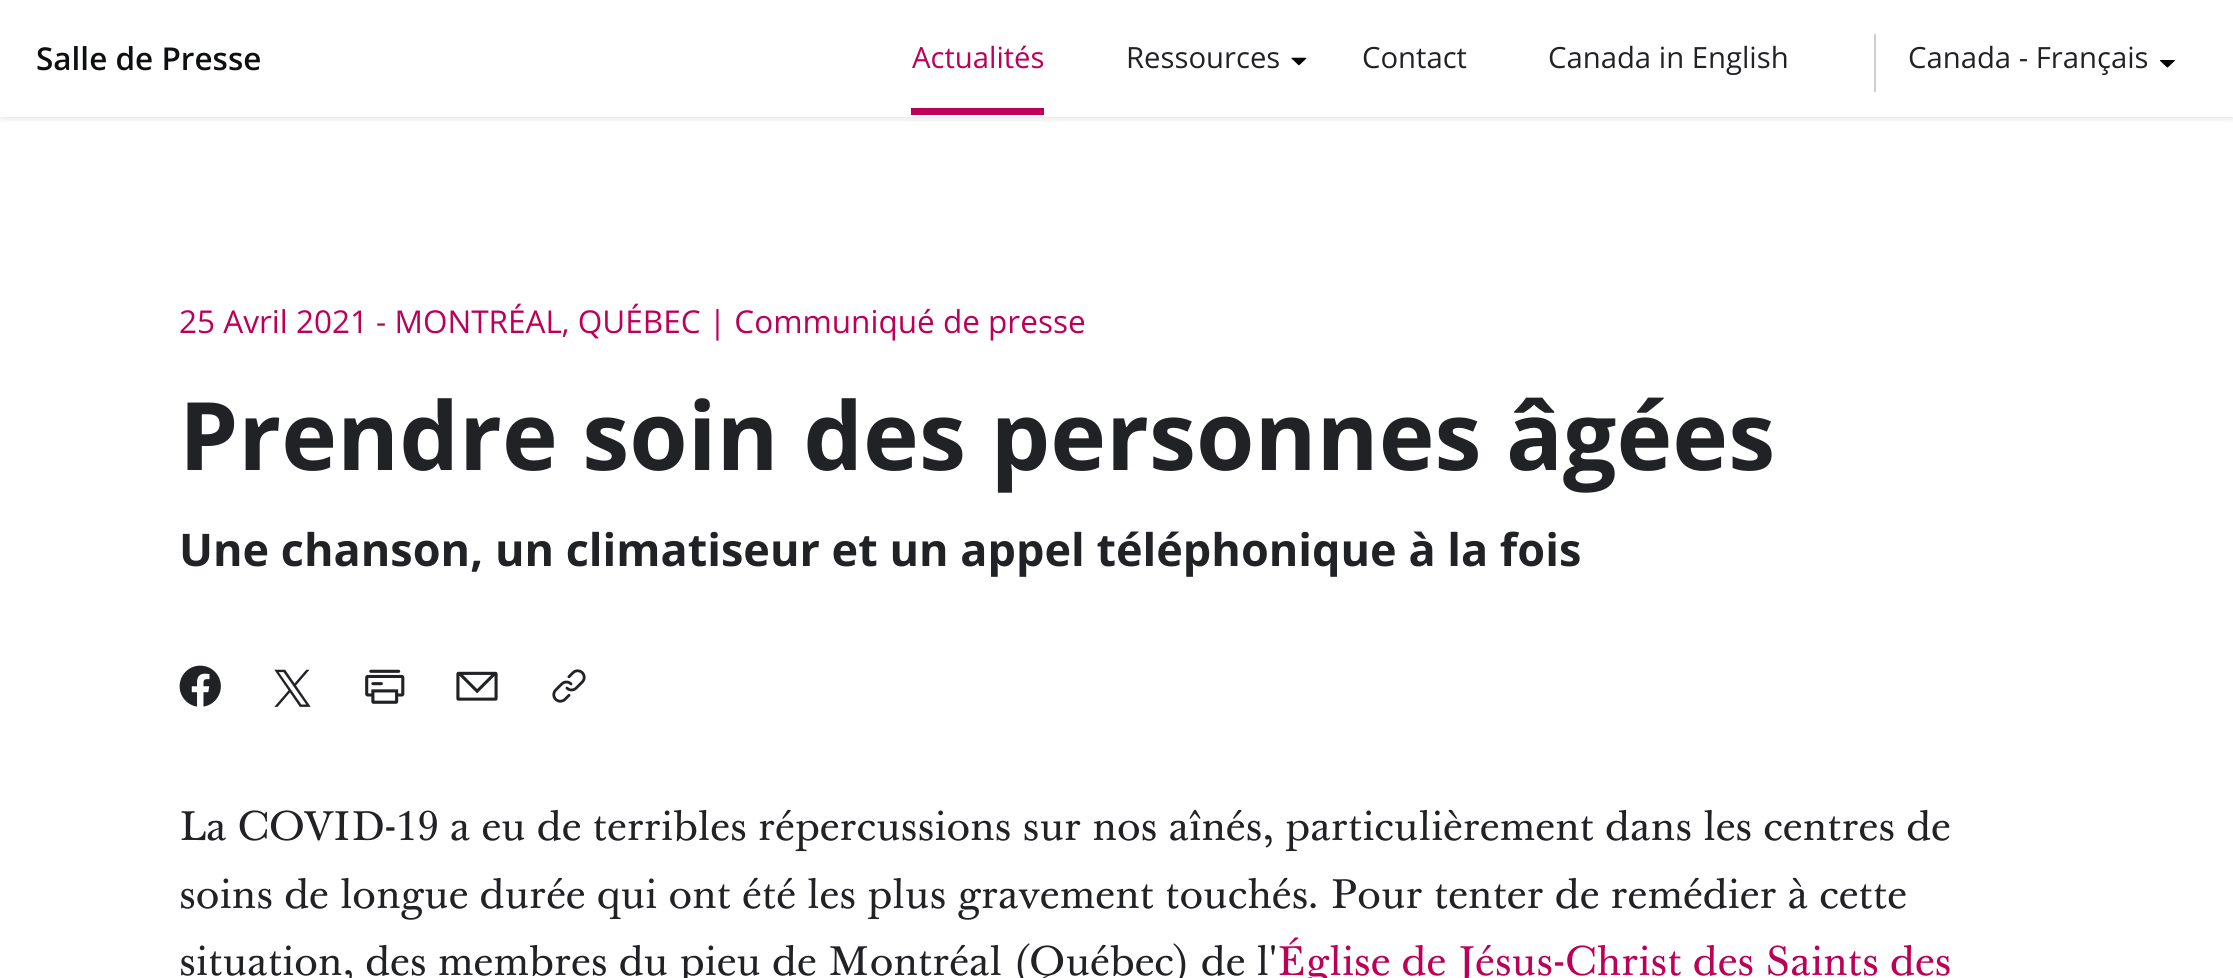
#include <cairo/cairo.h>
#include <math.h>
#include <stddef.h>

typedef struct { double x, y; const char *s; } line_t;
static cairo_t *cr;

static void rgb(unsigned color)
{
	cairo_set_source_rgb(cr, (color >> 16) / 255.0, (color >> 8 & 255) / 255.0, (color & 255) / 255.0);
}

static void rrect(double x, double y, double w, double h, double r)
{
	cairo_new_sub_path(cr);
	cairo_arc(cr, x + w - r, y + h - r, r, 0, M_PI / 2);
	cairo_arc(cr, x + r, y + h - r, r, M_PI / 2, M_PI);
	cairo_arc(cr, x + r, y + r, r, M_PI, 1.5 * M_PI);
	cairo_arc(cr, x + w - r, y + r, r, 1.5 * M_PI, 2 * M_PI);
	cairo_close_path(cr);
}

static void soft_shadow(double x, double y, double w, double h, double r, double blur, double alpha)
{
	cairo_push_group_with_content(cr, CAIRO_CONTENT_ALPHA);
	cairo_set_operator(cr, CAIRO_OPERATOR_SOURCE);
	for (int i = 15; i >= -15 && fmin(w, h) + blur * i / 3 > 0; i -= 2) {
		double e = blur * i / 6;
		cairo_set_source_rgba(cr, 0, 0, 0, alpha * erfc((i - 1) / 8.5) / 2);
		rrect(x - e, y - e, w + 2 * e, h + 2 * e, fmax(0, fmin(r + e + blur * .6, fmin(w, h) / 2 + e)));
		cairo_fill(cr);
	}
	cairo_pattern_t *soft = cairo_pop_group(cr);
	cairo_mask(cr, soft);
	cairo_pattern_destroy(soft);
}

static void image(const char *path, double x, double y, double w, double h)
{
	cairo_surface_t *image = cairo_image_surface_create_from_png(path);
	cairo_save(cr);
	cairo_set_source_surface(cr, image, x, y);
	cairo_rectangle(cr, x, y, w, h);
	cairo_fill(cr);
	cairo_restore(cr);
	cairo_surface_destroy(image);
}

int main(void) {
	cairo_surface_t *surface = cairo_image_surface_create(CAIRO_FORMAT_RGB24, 2233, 978);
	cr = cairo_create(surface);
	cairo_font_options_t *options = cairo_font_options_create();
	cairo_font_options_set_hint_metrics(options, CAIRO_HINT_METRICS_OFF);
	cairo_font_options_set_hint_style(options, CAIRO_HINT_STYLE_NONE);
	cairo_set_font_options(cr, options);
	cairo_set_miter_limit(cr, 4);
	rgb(0xffffff);
	cairo_paint(cr);
	cairo_save(cr);
	cairo_rectangle(cr, 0, 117, 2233, 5);
	cairo_clip(cr);
	rgb(0x000000);
	soft_shadow(0, 0, 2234, 117, 0, 4.5, 0.15);
	cairo_restore(cr);
	rgb(0xbd0057);
	cairo_rectangle(cr, 911, 108, 133, 7);
	cairo_fill(cr);
	image("img/1.png", 1291, 57, 16, 9);
	rgb(0xcfcfd1);
	cairo_rectangle(cr, 1874, 34, 2, 58);
	cairo_fill(cr);
	image("img/2.png", 2160, 60, 15, 8);
	image("img/3.png", 179, 665, 42, 42);
	image("img/4.png", 274, 669, 37, 38);
	image("img/5.png", 365, 669, 40, 35);
	image("img/6.png", 456, 671, 42, 30);
	image("img/7.png", 552, 669, 34, 34);
	cairo_select_font_face(cr, "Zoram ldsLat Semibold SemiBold", CAIRO_FONT_SLANT_NORMAL, CAIRO_FONT_WEIGHT_NORMAL);
	cairo_set_font_size(cr, 31.5);
	rgb(0x0d0f10);
	cairo_move_to(cr, 36, 70);
	cairo_show_text(cr, "Salle de Presse");
	cairo_select_font_face(cr, "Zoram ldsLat", CAIRO_FONT_SLANT_NORMAL, CAIRO_FONT_WEIGHT_NORMAL);
	cairo_set_font_size(cr, 29.25);
	rgb(0xbd0057);
	cairo_move_to(cr, 912, 68);
	cairo_show_text(cr, "Actualités");
	rgb(0x212225);
	{
		static const line_t items[] = {
			{1126, 68, "Ressources"},
			{1362, 68, "Contact"},
			{1548, 68, "Canada in English"},
			{1908, 68, "Canada - Français"},
		};
		for (size_t i = 0; i < sizeof items / sizeof *items; i++) {
			cairo_move_to(cr, items[i].x, items[i].y);
			cairo_show_text(cr, items[i].s);
		}
	}
	cairo_set_font_size(cr, 31.5);
	rgb(0xbd0057);
	cairo_move_to(cr, 179, 333);
	cairo_show_text(cr, "25 Avril 2021 - MONTRÉAL, QUÉBEC | Communiqué de presse");
	cairo_select_font_face(cr, "Zoram ldsLat", CAIRO_FONT_SLANT_NORMAL, CAIRO_FONT_WEIGHT_BOLD);
	cairo_set_font_size(cr, 94.5);
	rgb(0x212225);
	cairo_move_to(cr, 179, 470);
	cairo_show_text(cr, "Prendre soin des personnes âgées");
	cairo_set_font_size(cr, 45);
	cairo_move_to(cr, 179, 566);
	cairo_show_text(cr, "Une chanson, un climatiseur et un appel téléphonique à la fois");
	cairo_select_font_face(cr, "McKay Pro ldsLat", CAIRO_FONT_SLANT_NORMAL, CAIRO_FONT_WEIGHT_NORMAL);
	cairo_set_font_size(cr, 40.5);
	{
		static const line_t items[] = {
			{179, 840, "La COVID-19 a eu de terribles répercussions sur nos aînés, particulièrement dans les centres de"},
			{179, 908, "soins de longue durée qui ont été les plus gravement touchés. Pour tenter de remédier à cette"},
			{179, 975, "situation, des membres du pieu de Montréal (Québec) de l'"},
		};
		for (size_t i = 0; i < sizeof items / sizeof *items; i++) {
			cairo_move_to(cr, items[i].x, items[i].y);
			cairo_show_text(cr, items[i].s);
		}
	}
	rgb(0xbd0057);
	cairo_move_to(cr, 1277, 975);
	cairo_show_text(cr, "Église de Jésus-Christ des Saints des");
	cairo_surface_write_to_png(surface, "page.png");
	cairo_font_options_destroy(options);
	cairo_destroy(cr);
	cairo_surface_destroy(surface);
	return 0;
}
